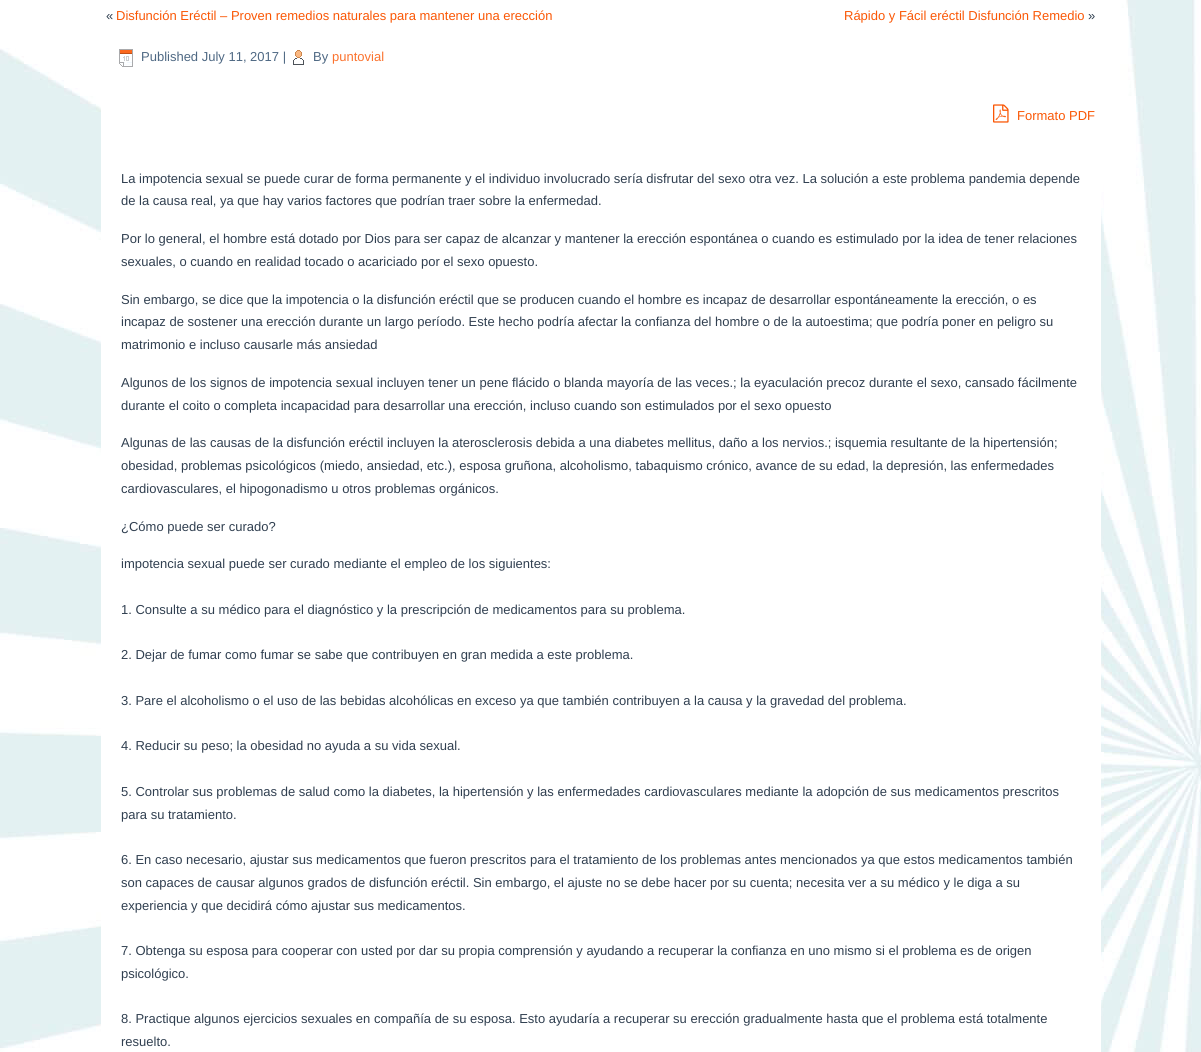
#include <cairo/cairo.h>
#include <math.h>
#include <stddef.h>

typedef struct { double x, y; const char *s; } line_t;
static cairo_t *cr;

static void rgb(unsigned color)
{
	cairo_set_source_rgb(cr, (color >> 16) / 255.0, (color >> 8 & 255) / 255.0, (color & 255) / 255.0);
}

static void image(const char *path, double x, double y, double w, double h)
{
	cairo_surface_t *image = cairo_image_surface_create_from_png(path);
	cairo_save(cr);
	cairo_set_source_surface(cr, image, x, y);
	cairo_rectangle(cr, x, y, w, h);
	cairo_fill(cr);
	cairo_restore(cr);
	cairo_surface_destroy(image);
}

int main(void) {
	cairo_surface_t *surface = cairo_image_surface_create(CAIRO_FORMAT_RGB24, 1201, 1052);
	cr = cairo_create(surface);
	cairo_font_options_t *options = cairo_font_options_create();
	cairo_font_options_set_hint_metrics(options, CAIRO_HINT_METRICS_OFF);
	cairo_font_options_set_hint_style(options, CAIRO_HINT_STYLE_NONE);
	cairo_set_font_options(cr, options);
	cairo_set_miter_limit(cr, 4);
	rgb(0xffffff);
	cairo_paint(cr);
	image("img/1.png", 0, 0, 1201, 1052);
	rgb(0xffffff);
	cairo_rectangle(cr, 101, 0, 1000, 1052);
	cairo_fill(cr);
	image("img/2.png", 119, 49, 14, 18);
	image("img/3.png", 293, 50, 11, 15);
	image("img/4.png", 993, 104, 16, 19);
	cairo_select_font_face(cr, "Liberation Sans", CAIRO_FONT_SLANT_NORMAL, CAIRO_FONT_WEIGHT_NORMAL);
	cairo_set_font_size(cr, 13);
	rgb(0x303f50);
	cairo_move_to(cr, 106, 20);
	cairo_show_text(cr, "«");
	rgb(0xfa5705);
	cairo_move_to(cr, 116, 20);
	cairo_show_text(cr, "Disfunción Eréctil – Proven remedios naturales para mantener una erección");
	cairo_move_to(cr, 844, 20);
	cairo_show_text(cr, "Rápido y Fácil eréctil Disfunción Remedio");
	rgb(0x303f50);
	cairo_move_to(cr, 1088, 20);
	cairo_show_text(cr, "»");
	rgb(0x4e6883);
	cairo_move_to(cr, 141, 61);
	cairo_show_text(cr, "Published July 11, 2017 |");
	cairo_move_to(cr, 313, 61);
	cairo_show_text(cr, "By");
	rgb(0xfb722d);
	cairo_move_to(cr, 332, 61);
	cairo_show_text(cr, "puntovial");
	rgb(0xfa5705);
	cairo_move_to(cr, 1017, 120);
	cairo_show_text(cr, "Formato PDF");
	rgb(0x303f50);
	{
		static const line_t items[] = {
			{121, 183, "La impotencia sexual se puede curar de forma permanente y el individuo involucrado sería disfrutar del sexo otra vez. La solución a este problema pandemia depende"},
			{121, 205, "de la causa real, ya que hay varios factores que podrían traer sobre la enfermedad."},
			{121, 243, "Por lo general, el hombre está dotado por Dios para ser capaz de alcanzar y mantener la erección espontánea o cuando es estimulado por la idea de tener relaciones"},
			{121, 266, "sexuales, o cuando en realidad tocado o acariciado por el sexo opuesto."},
			{121, 304, "Sin embargo, se dice que la impotencia o la disfunción eréctil que se producen cuando el hombre es incapaz de desarrollar espontáneamente la erección, o es"},
			{121, 326, "incapaz de sostener una erección durante un largo período. Este hecho podría afectar la confianza del hombre o de la autoestima; que podría poner en peligro su"},
			{121, 349, "matrimonio e incluso causarle más ansiedad"},
			{121, 387, "Algunos de los signos de impotencia sexual incluyen tener un pene flácido o blanda mayoría de las veces.; la eyaculación precoz durante el sexo, cansado fácilmente"},
			{121, 410, "durante el coito o completa incapacidad para desarrollar una erección, incluso cuando son estimulados por el sexo opuesto"},
			{121, 447, "Algunas de las causas de la disfunción eréctil incluyen la aterosclerosis debida a una diabetes mellitus, daño a los nervios.; isquemia resultante de la hipertensión;"},
			{121, 470, "obesidad, problemas psicológicos (miedo, ansiedad, etc.), esposa gruñona, alcoholismo, tabaquismo crónico, avance de su edad, la depresión, las enfermedades"},
			{121, 493, "cardiovasculares, el hipogonadismo u otros problemas orgánicos."},
			{121, 531, "¿Cómo puede ser curado?"},
			{121, 568, "impotencia sexual puede ser curado mediante el empleo de los siguientes:"},
			{121, 614, "1. Consulte a su médico para el diagnóstico y la prescripción de medicamentos para su problema."},
			{121, 659, "2. Dejar de fumar como fumar se sabe que contribuyen en gran medida a este problema."},
			{121, 705, "3. Pare el alcoholismo o el uso de las bebidas alcohólicas en exceso ya que también contribuyen a la causa y la gravedad del problema."},
			{121, 750, "4. Reducir su peso; la obesidad no ayuda a su vida sexual."},
			{121, 796, "5. Controlar sus problemas de salud como la diabetes, la hipertensión y las enfermedades cardiovasculares mediante la adopción de sus medicamentos prescritos"},
			{121, 819, "para su tratamiento."},
			{121, 864, "6. En caso necesario, ajustar sus medicamentos que fueron prescritos para el tratamiento de los problemas antes mencionados ya que estos medicamentos también"},
			{121, 887, "son capaces de causar algunos grados de disfunción eréctil. Sin embargo, el ajuste no se debe hacer por su cuenta; necesita ver a su médico y le diga a su"},
			{121, 910, "experiencia y que decidirá cómo ajustar sus medicamentos."},
			{121, 955, "7. Obtenga su esposa para cooperar con usted por dar su propia comprensión y ayudando a recuperar la confianza en uno mismo si el problema es de origen"},
			{121, 978, "psicológico."},
			{121, 1023, "8. Practique algunos ejercicios sexuales en compañía de su esposa. Esto ayudaría a recuperar su erección gradualmente hasta que el problema está totalmente"},
			{121, 1046, "resuelto."},
		};
		for (size_t i = 0; i < sizeof items / sizeof *items; i++) {
			cairo_move_to(cr, items[i].x, items[i].y);
			cairo_show_text(cr, items[i].s);
		}
	}
	cairo_surface_write_to_png(surface, "page.png");
	cairo_font_options_destroy(options);
	cairo_destroy(cr);
	cairo_surface_destroy(surface);
	return 0;
}
